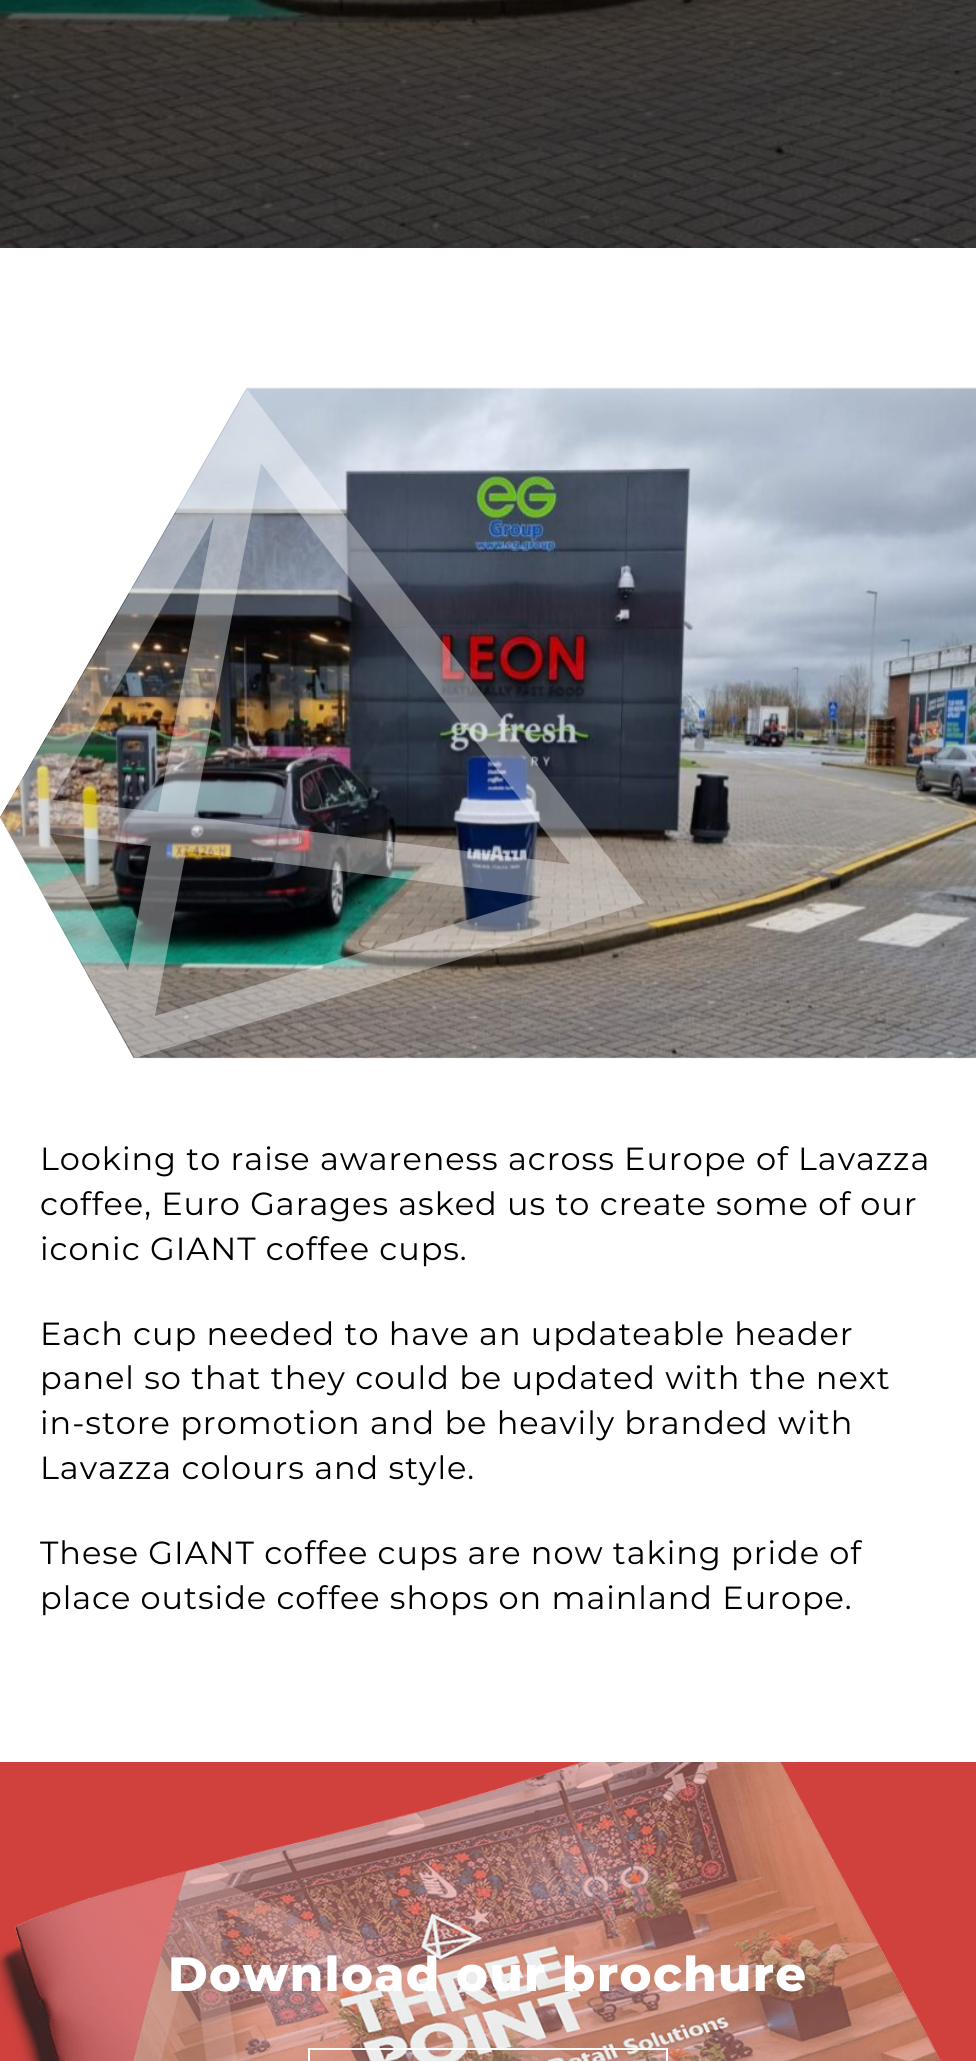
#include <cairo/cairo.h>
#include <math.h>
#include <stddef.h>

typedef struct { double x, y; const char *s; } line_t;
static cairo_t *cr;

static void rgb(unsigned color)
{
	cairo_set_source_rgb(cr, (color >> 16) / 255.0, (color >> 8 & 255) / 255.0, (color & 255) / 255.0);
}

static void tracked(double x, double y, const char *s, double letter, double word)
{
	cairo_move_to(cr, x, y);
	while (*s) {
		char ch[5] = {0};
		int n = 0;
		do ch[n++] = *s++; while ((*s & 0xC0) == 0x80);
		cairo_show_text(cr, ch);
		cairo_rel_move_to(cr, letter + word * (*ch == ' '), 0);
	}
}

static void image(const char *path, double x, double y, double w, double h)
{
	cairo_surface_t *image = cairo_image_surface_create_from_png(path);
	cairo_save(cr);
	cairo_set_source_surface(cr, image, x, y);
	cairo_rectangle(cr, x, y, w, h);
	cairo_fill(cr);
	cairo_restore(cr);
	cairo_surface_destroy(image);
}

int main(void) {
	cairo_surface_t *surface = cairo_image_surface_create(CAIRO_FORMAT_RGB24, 976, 2061);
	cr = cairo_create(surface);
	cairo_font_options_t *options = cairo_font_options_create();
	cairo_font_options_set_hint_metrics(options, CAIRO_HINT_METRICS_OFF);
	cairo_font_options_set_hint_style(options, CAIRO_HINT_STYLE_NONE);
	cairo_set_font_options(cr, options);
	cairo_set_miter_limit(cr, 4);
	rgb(0xffffff);
	cairo_paint(cr);
	image("img/1.png", 0, 0, 976, 248);
	image("img/2.png", 0, 387, 976, 672);
	cairo_set_source_rgba(cr, 1, 1, 1, 0.37);
	cairo_new_path(cr);
	cairo_move_to(cr, 247, 389);
	cairo_line_to(cr, 0, 818);
	cairo_line_to(cr, 135, 1058);
	cairo_line_to(cr, 644, 903);
	cairo_close_path(cr);
	cairo_move_to(cr, 261, 463);
	cairo_line_to(cr, 570, 864);
	cairo_line_to(cr, 194, 817);
	cairo_close_path(cr);
	cairo_move_to(cr, 214, 517);
	cairo_line_to(cr, 158, 812);
	cairo_line_to(cr, 53, 800);
	cairo_close_path(cr);
	cairo_move_to(cr, 128, 971);
	cairo_line_to(cr, 50, 834);
	cairo_line_to(cr, 151, 846);
	cairo_close_path(cr);
	cairo_move_to(cr, 155, 1016);
	cairo_line_to(cr, 186, 851);
	cairo_line_to(cr, 542, 897);
	cairo_close_path(cr);
	cairo_fill(cr);
	rgb(0xd0413d);
	cairo_rectangle(cr, 0, 1762, 976, 299);
	cairo_fill(cr);
	image("img/3.png", 0, 1762, 942, 299);
	cairo_rectangle(cr, 309, 2049, 358, 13);
	rgb(0xffffff);
	cairo_stroke(cr);
	cairo_select_font_face(cr, "Montserrat", CAIRO_FONT_SLANT_NORMAL, CAIRO_FONT_WEIGHT_NORMAL);
	cairo_set_font_size(cr, 32);
	rgb(0x000000);
	{
		static const line_t items[] = {
			{40, 1170, "Looking to raise awareness across Europe of Lavazza"},
			{40, 1215, "coffee, Euro Garages asked us to create some of our"},
			{40, 1260, "iconic GIANT coffee cups."},
			{40, 1345, "Each cup needed to have an updateable header"},
			{40, 1389, "panel so that they could be updated with the next"},
			{40, 1434, "in-store promotion and be heavily branded with"},
			{40, 1479, "Lavazza colours and style."},
			{40, 1564, "These GIANT coffee cups are now taking pride of"},
			{40, 1609, "place outside coffee shops on mainland Europe."},
		};
		for (size_t i = 0; i < sizeof items / sizeof *items; i++) {
			tracked(items[i].x, items[i].y, items[i].s, 0.95, 0);
		}
	}
	cairo_select_font_face(cr, "Montserrat ExtraBold", CAIRO_FONT_SLANT_NORMAL, CAIRO_FONT_WEIGHT_NORMAL);
	cairo_set_font_size(cr, 48);
	rgb(0xffffff);
	tracked(168, 1991, "Download our brochure", 1.4, 0);
	cairo_surface_write_to_png(surface, "page.png");
	cairo_font_options_destroy(options);
	cairo_destroy(cr);
	cairo_surface_destroy(surface);
	return 0;
}
